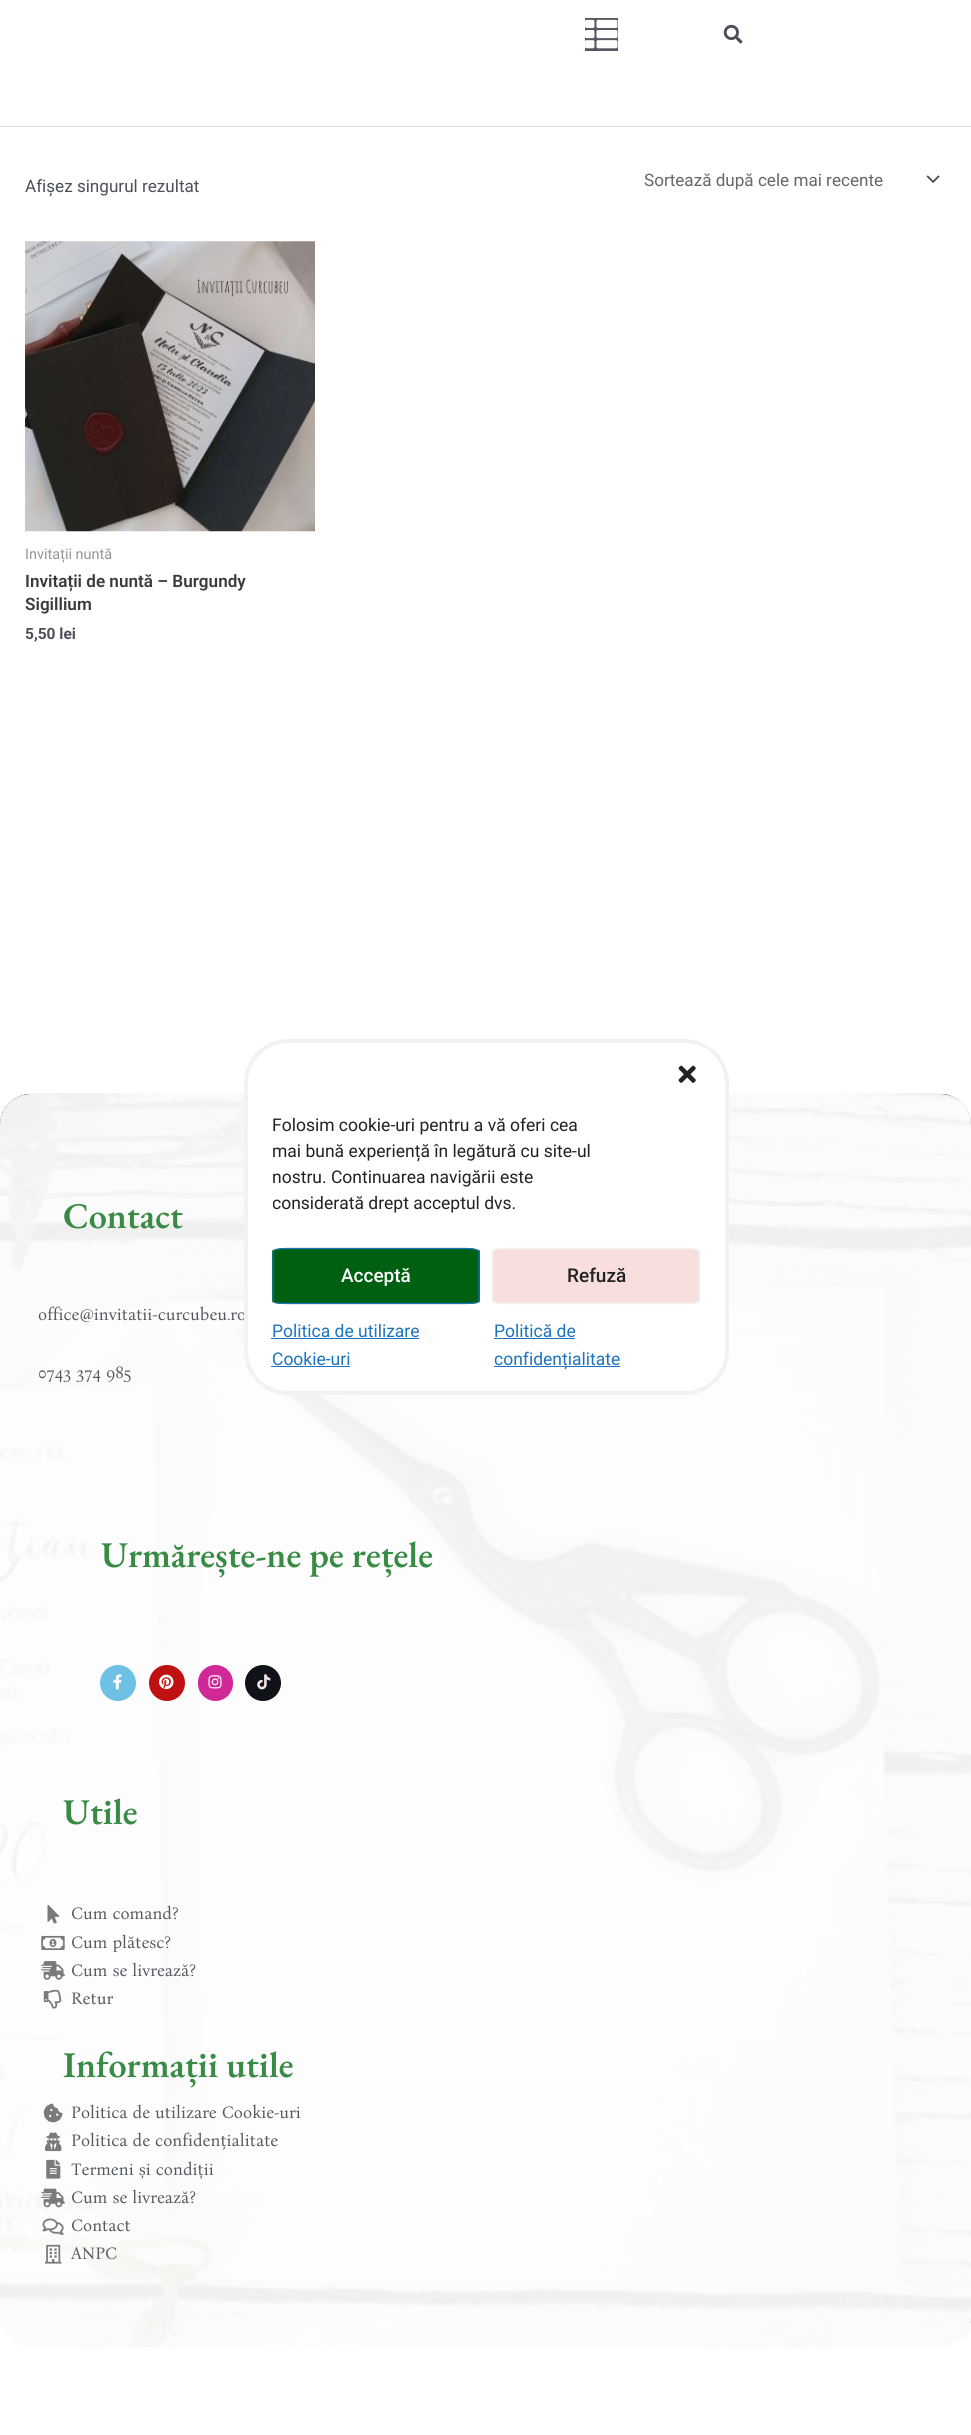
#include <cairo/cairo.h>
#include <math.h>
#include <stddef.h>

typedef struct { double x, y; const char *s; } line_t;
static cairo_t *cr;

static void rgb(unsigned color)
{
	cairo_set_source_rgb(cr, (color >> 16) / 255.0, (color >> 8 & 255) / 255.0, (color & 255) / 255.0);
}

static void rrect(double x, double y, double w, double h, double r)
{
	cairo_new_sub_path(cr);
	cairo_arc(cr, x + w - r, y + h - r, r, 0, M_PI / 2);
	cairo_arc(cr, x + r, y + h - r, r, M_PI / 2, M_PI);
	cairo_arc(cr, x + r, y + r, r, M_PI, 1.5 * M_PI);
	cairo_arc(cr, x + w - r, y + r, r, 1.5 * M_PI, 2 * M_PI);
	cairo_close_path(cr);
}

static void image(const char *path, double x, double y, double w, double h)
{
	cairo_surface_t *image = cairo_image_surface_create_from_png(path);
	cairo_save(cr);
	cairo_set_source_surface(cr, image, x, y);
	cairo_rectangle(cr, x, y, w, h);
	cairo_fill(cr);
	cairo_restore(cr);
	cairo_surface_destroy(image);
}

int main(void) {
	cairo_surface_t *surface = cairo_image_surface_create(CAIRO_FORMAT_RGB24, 971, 2435);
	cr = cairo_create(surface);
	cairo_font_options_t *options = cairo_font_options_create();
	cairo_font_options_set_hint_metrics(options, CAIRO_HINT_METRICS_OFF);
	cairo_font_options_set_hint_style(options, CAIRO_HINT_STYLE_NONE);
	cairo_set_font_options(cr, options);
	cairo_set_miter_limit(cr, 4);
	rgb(0xffffff);
	cairo_paint(cr);
	rgb(0x54595f);
	cairo_rectangle(cr, 585, 18, 33, 33);
	cairo_fill(cr);
	image("img/1.png", 585, 19, 33, 30);
	image("img/2.png", 723, 24, 20, 20);
	rgb(0xe5e5e5);
	cairo_rectangle(cr, 0, 126, 971, 1);
	cairo_fill(cr);
	image("img/3.png", 926, 175, 14, 8);
	image("img/4.png", 25, 241, 290, 291);
	image("img/5.png", 0, 1093, 971, 1255);
	cairo_set_source_rgba(cr, 1, 1, 1, 0.94);
	rrect(0, 1094, 971, 1254, 31);
	cairo_fill(cr);
	rgb(0x6ec1e4);
	cairo_arc(cr, 118, 1683, 18, 0, 2 * M_PI);
	cairo_fill(cr);
	image("img/6.png", 113, 1674, 9, 16);
	rgb(0xbf1111);
	cairo_arc(cr, 167, 1683, 18, 0, 2 * M_PI);
	cairo_fill(cr);
	image("img/7.png", 159, 1674, 15, 16);
	rgb(0xd02897);
	rrect(198, 1665, 35, 36, 17.5);
	cairo_fill(cr);
	image("img/8.png", 208, 1675, 14, 14);
	rgb(0x0f1216);
	cairo_arc(cr, 263, 1683, 18, 0, 2 * M_PI);
	cairo_fill(cr);
	image("img/9.png", 257, 1674, 14, 16);
	image("img/10.png", 47, 1904, 13, 20);
	image("img/11.png", 41, 1935, 24, 15);
	image("img/12.png", 41, 1961, 24, 19);
	image("img/13.png", 43, 1989, 19, 20);
	image("img/14.png", 43, 2103, 20, 20);
	image("img/15.png", 45, 2132, 17, 20);
	image("img/16.png", 46, 2159, 15, 20);
	image("img/17.png", 41, 2188, 24, 20);
	image("img/18.png", 42, 2218, 22, 17);
	image("img/19.png", 45, 2244, 17, 20);
	cairo_select_font_face(cr, "Roboto", CAIRO_FONT_SLANT_NORMAL, CAIRO_FONT_WEIGHT_NORMAL);
	cairo_set_font_size(cr, 17.1);
	rgb(0x4b4f58);
	cairo_move_to(cr, 25, 192);
	cairo_show_text(cr, "Afișez singurul rezultat");
	rgb(0x666666);
	cairo_move_to(cr, 644, 186);
	cairo_show_text(cr, "Sortează după cele mai recente");
	cairo_set_font_size(cr, 14.5);
	rgb(0x93959b);
	cairo_move_to(cr, 25, 559);
	cairo_show_text(cr, "Invitații nuntă");
	cairo_select_font_face(cr, "Roboto SemiBold", CAIRO_FONT_SLANT_NORMAL, CAIRO_FONT_WEIGHT_NORMAL);
	cairo_set_font_size(cr, 17.1);
	rgb(0x3a3a3a);
	cairo_move_to(cr, 25, 587);
	cairo_show_text(cr, "Invitații de nuntă – Burgundy");
	cairo_move_to(cr, 25, 610);
	cairo_show_text(cr, "Sigillium");
	cairo_select_font_face(cr, "Roboto", CAIRO_FONT_SLANT_NORMAL, CAIRO_FONT_WEIGHT_BOLD);
	cairo_set_font_size(cr, 15.5);
	rgb(0x4b4f58);
	cairo_move_to(cr, 25, 639);
	cairo_show_text(cr, "5,50 lei");
	cairo_select_font_face(cr, "EB Garamond SemiBold", CAIRO_FONT_SLANT_NORMAL, CAIRO_FONT_WEIGHT_NORMAL);
	cairo_set_font_size(cr, 36.25);
	rgb(0x388b44);
	cairo_move_to(cr, 63, 1228);
	cairo_show_text(cr, "Contact");
	cairo_select_font_face(cr, "Bona Nova", CAIRO_FONT_SLANT_NORMAL, CAIRO_FONT_WEIGHT_NORMAL);
	cairo_set_font_size(cr, 17.1);
	rgb(0x54595f);
	cairo_move_to(cr, 38, 1320);
	cairo_show_text(cr, "office@invitatii-curcubeu.ro");
	cairo_move_to(cr, 38, 1378);
	cairo_show_text(cr, "0743 374 985");
	cairo_select_font_face(cr, "EB Garamond SemiBold", CAIRO_FONT_SLANT_NORMAL, CAIRO_FONT_WEIGHT_NORMAL);
	cairo_set_font_size(cr, 36.25);
	rgb(0x388b44);
	cairo_move_to(cr, 101, 1567);
	cairo_show_text(cr, "Urmărește-ne pe rețele");
	cairo_move_to(cr, 63, 1824);
	cairo_show_text(cr, "Utile");
	cairo_select_font_face(cr, "Bona Nova", CAIRO_FONT_SLANT_NORMAL, CAIRO_FONT_WEIGHT_NORMAL);
	cairo_set_font_size(cr, 17.1);
	rgb(0x54595f);
	{
		static const line_t items[] = {
			{71, 1919, "Cum comand?"},
			{71, 1948, "Cum plătesc?"},
			{71, 1976, "Cum se livrează?"},
			{71, 2004, "Retur"},
		};
		for (size_t i = 0; i < sizeof items / sizeof *items; i++) {
			cairo_move_to(cr, items[i].x, items[i].y);
			cairo_show_text(cr, items[i].s);
		}
	}
	cairo_select_font_face(cr, "EB Garamond SemiBold", CAIRO_FONT_SLANT_NORMAL, CAIRO_FONT_WEIGHT_NORMAL);
	cairo_set_font_size(cr, 36.25);
	rgb(0x388b44);
	cairo_move_to(cr, 63, 2077);
	cairo_show_text(cr, "Informații utile");
	cairo_select_font_face(cr, "Bona Nova", CAIRO_FONT_SLANT_NORMAL, CAIRO_FONT_WEIGHT_NORMAL);
	cairo_set_font_size(cr, 17.1);
	rgb(0x54595f);
	{
		static const line_t items[] = {
			{71, 2118, "Politica de utilizare Cookie-uri"},
			{71, 2146, "Politica de confidențialitate"},
			{71, 2175, "Termeni și condiții"},
			{71, 2203, "Cum se livrează?"},
			{71, 2231, "Contact"},
			{71, 2259, "ANPC"},
		};
		for (size_t i = 0; i < sizeof items / sizeof *items; i++) {
			cairo_move_to(cr, items[i].x, items[i].y);
			cairo_show_text(cr, items[i].s);
		}
	}
	rgb(0xffffff);
	rrect(246, 1041, 481, 352, 42);
	cairo_fill_preserve(cr);
	rgb(0xf2f2f2);
	cairo_set_line_width(cr, 4);
	cairo_stroke(cr);
	image("img/20.png", 678, 1065, 18, 18);
	cairo_select_font_face(cr, "Roboto", CAIRO_FONT_SLANT_NORMAL, CAIRO_FONT_WEIGHT_NORMAL);
	cairo_set_font_size(cr, 17.5);
	rgb(0x222222);
	cairo_move_to(cr, 272, 1131);
	cairo_show_text(cr, "Folosim cookie-uri pentru a vă oferi cea");
	cairo_save(cr);
	cairo_rectangle(cr, 273, 1111, 427, 112);
	cairo_clip(cr);
	{
		static const line_t items[] = {
			{272, 1157, "mai bună experiență în legătură cu site-ul"},
			{272, 1183, "nostru. Continuarea navigării este"},
			{272, 1209, "considerată drept acceptul dvs."},
		};
		for (size_t i = 0; i < sizeof items / sizeof *items; i++) {
			cairo_move_to(cr, items[i].x, items[i].y);
			cairo_show_text(cr, items[i].s);
		}
	}
	cairo_restore(cr);
	rgb(0x006011);
	cairo_new_path(cr);
	cairo_move_to(cr, 285, 1248);
	cairo_line_to(cr, 467, 1248);
	cairo_curve_to(cr, 474, 1248, 480, 1250, 480, 1251);
	cairo_line_to(cr, 480, 1301);
	cairo_curve_to(cr, 480, 1303, 474, 1304, 467, 1304);
	cairo_line_to(cr, 285, 1304);
	cairo_curve_to(cr, 278, 1304, 272, 1303, 272, 1301);
	cairo_line_to(cr, 272, 1251);
	cairo_curve_to(cr, 272, 1250, 278, 1248, 285, 1248);
	cairo_close_path(cr);
	cairo_fill(cr);
	cairo_new_path(cr);
	cairo_move_to(cr, 284.5, 1248.5);
	cairo_line_to(cr, 467, 1248.5);
	cairo_curve_to(cr, 474, 1248.5, 479, 1250, 479, 1251.5);
	cairo_line_to(cr, 479, 1301);
	cairo_curve_to(cr, 479, 1302.5, 474, 1303.5, 467, 1303.5);
	cairo_line_to(cr, 284.5, 1303.5);
	cairo_curve_to(cr, 278, 1303.5, 273, 1302.5, 273, 1301);
	cairo_line_to(cr, 273, 1251.5);
	cairo_curve_to(cr, 273, 1250, 278, 1248.5, 284.5, 1248.5);
	cairo_close_path(cr);
	rgb(0x1e73be);
	cairo_set_line_width(cr, 1.2);
	cairo_stroke(cr);
	cairo_select_font_face(cr, "Roboto Medium", CAIRO_FONT_SLANT_NORMAL, CAIRO_FONT_WEIGHT_NORMAL);
	cairo_set_font_size(cr, 19);
	rgb(0xffffff);
	cairo_move_to(cr, 341, 1282);
	cairo_show_text(cr, "Acceptă");
	rgb(0xf9dede);
	cairo_new_path(cr);
	cairo_move_to(cr, 505, 1248);
	cairo_line_to(cr, 687, 1248);
	cairo_curve_to(cr, 694, 1248, 700, 1250, 700, 1251);
	cairo_line_to(cr, 700, 1301);
	cairo_curve_to(cr, 700, 1303, 694, 1304, 687, 1304);
	cairo_line_to(cr, 505, 1304);
	cairo_curve_to(cr, 498, 1304, 492, 1303, 492, 1301);
	cairo_line_to(cr, 492, 1251);
	cairo_curve_to(cr, 492, 1250, 498, 1248, 505, 1248);
	cairo_close_path(cr);
	cairo_fill(cr);
	cairo_new_path(cr);
	cairo_move_to(cr, 504.5, 1248.5);
	cairo_line_to(cr, 687, 1248.5);
	cairo_curve_to(cr, 694, 1248.5, 699, 1250, 699, 1251.5);
	cairo_line_to(cr, 699, 1301);
	cairo_curve_to(cr, 699, 1302.5, 694, 1303.5, 687, 1303.5);
	cairo_line_to(cr, 504.5, 1303.5);
	cairo_curve_to(cr, 498, 1303.5, 493, 1302.5, 493, 1301);
	cairo_line_to(cr, 493, 1251.5);
	cairo_curve_to(cr, 493, 1250, 498, 1248.5, 504.5, 1248.5);
	cairo_close_path(cr);
	rgb(0xf2f2f2);
	cairo_stroke(cr);
	rgb(0x222222);
	cairo_move_to(cr, 567, 1282);
	cairo_show_text(cr, "Refuză");
	cairo_select_font_face(cr, "Roboto", CAIRO_FONT_SLANT_NORMAL, CAIRO_FONT_WEIGHT_NORMAL);
	cairo_set_font_size(cr, 17.5);
	rgb(0x1e73be);
	cairo_move_to(cr, 272, 1337);
	cairo_show_text(cr, "Politica de utilizare");
	cairo_rectangle(cr, 271, 1338, 148, 1);
	cairo_fill(cr);
	cairo_move_to(cr, 272, 1365);
	cairo_show_text(cr, "Cookie-uri");
	cairo_rectangle(cr, 271, 1366, 79, 1);
	cairo_fill(cr);
	cairo_move_to(cr, 494, 1337);
	cairo_show_text(cr, "Politică de");
	cairo_rectangle(cr, 494, 1338, 81, 1);
	cairo_fill(cr);
	cairo_rectangle(cr, 494, 1366, 126, 1);
	cairo_fill(cr);
	cairo_move_to(cr, 494, 1365);
	cairo_show_text(cr, "confidențialitate");
	cairo_surface_write_to_png(surface, "page.png");
	cairo_font_options_destroy(options);
	cairo_destroy(cr);
	cairo_surface_destroy(surface);
	return 0;
}
